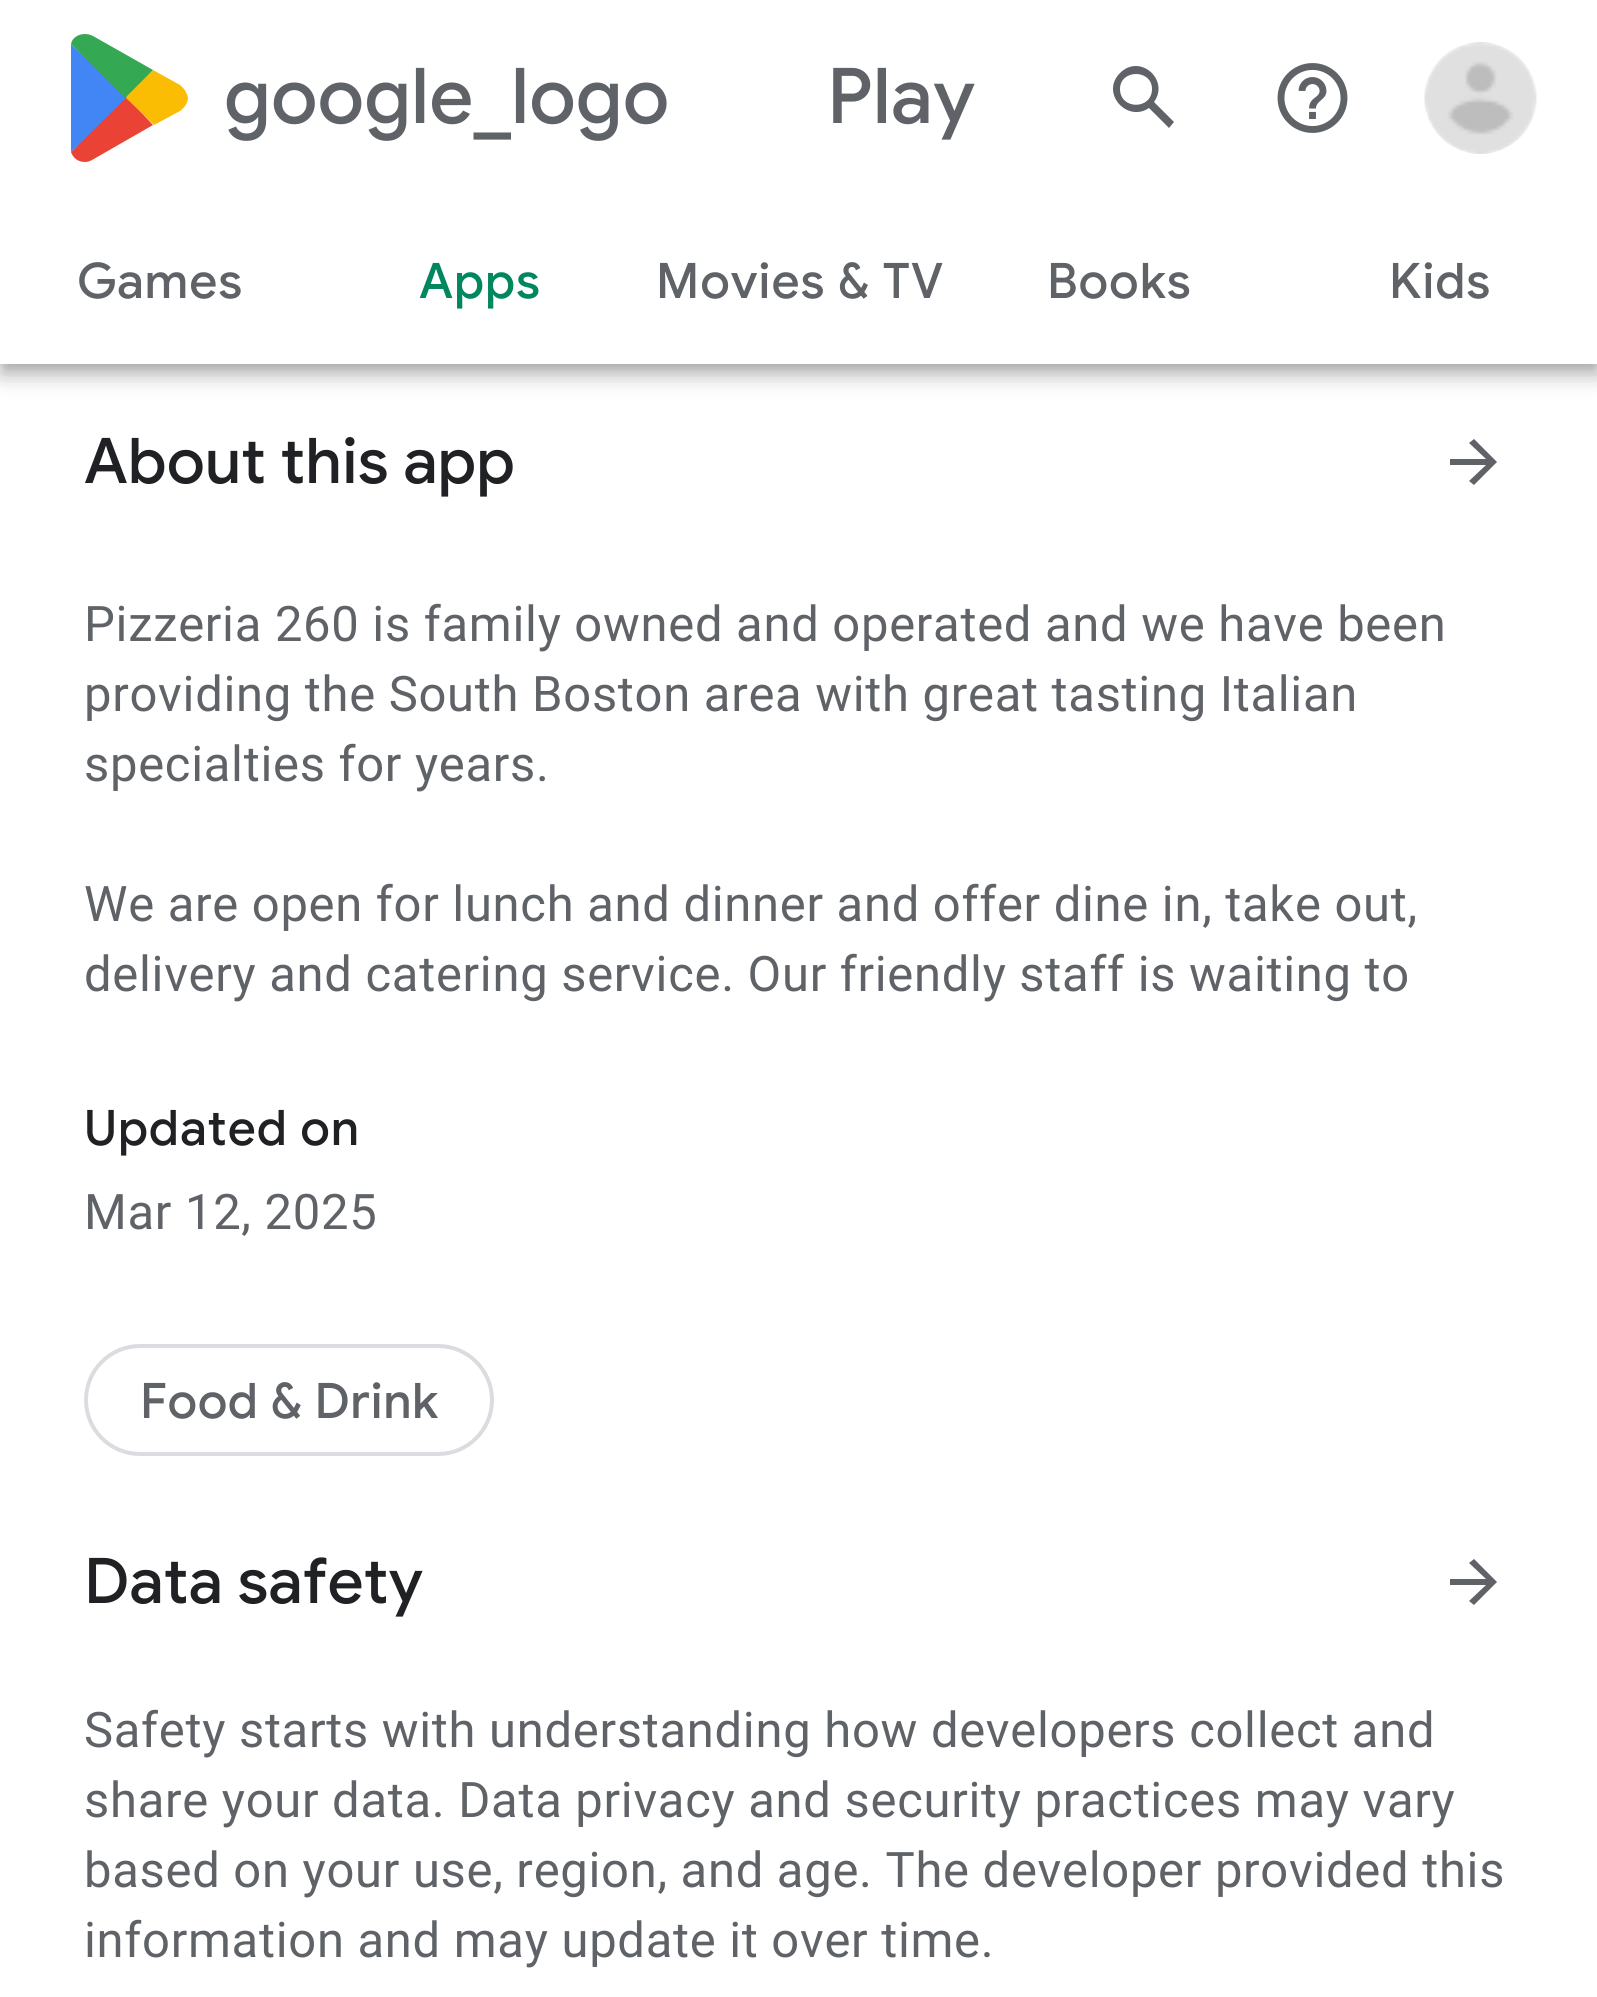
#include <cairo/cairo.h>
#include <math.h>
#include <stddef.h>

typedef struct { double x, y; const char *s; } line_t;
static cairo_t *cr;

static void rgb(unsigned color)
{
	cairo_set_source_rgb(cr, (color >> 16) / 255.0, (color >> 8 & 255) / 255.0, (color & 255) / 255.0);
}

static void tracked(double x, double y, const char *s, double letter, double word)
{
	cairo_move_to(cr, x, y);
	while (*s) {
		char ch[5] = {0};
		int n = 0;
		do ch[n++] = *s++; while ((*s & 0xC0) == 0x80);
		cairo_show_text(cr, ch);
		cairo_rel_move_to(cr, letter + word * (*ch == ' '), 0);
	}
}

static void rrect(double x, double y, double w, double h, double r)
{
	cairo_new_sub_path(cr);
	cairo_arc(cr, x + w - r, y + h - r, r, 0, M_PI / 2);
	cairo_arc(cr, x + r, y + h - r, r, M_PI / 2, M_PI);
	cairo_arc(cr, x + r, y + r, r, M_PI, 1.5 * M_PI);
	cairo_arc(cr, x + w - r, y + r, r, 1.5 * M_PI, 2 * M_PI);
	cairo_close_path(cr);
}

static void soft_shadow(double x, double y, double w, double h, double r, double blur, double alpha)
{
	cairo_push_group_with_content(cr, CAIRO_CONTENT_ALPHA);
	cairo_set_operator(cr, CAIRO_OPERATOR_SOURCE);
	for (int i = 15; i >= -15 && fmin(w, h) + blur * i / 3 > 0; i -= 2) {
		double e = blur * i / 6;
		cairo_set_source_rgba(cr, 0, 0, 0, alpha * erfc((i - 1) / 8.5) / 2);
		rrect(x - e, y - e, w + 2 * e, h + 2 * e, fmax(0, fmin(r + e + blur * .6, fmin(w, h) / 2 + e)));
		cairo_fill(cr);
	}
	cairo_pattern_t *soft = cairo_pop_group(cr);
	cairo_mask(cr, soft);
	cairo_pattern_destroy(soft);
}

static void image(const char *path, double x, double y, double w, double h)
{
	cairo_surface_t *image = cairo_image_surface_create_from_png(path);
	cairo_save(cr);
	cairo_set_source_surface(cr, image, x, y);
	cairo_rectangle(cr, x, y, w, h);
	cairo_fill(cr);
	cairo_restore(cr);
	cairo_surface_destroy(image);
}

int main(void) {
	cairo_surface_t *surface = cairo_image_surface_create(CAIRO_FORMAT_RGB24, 1597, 1997);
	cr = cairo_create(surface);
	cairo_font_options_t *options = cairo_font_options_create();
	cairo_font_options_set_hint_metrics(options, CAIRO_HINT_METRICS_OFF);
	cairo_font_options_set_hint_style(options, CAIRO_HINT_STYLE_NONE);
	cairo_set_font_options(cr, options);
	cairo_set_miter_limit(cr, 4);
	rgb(0xffffff);
	cairo_paint(cr);
	rgb(0x000000);
	soft_shadow(4, 11, 1592, 357, 0, 7, 0.2);
	soft_shadow(0, 4, 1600, 364, 0, 17.5, 0.12);
	soft_shadow(0, 14, 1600, 364, 0, 9, 0.14);
	rgb(0xffffff);
	cairo_rectangle(cr, 0, 0, 1597, 364);
	cairo_fill(cr);
	rgb(0xea4335);
	cairo_new_path(cr);
	cairo_move_to(cr, 125, 95);
	cairo_line_to(cr, 71, 152);
	cairo_curve_to(cr, 73, 158, 78, 162, 85, 162);
	cairo_curve_to(cr, 88, 162, 90, 161, 92, 160);
	cairo_line_to(cr, 153, 125);
	cairo_close_path(cr);
	cairo_fill(cr);
	rgb(0xfbbc04);
	cairo_new_path(cr);
	cairo_move_to(cr, 180, 85);
	cairo_line_to(cr, 153, 70);
	cairo_line_to(cr, 124, 96);
	cairo_line_to(cr, 154, 125);
	cairo_line_to(cr, 180, 111);
	cairo_curve_to(cr, 184, 108, 188, 103, 188, 98);
	cairo_curve_to(cr, 187, 93, 184, 88, 180, 85);
	cairo_close_path(cr);
	cairo_fill(cr);
	rgb(0x4285f4);
	cairo_new_path(cr);
	cairo_move_to(cr, 71, 44);
	cairo_line_to(cr, 71, 152);
	cairo_line_to(cr, 127, 97);
	cairo_close_path(cr);
	cairo_fill(cr);
	rgb(0x34a853);
	cairo_new_path(cr);
	cairo_move_to(cr, 125, 98);
	cairo_line_to(cr, 153, 70);
	cairo_line_to(cr, 93, 36);
	cairo_curve_to(cr, 91, 35, 88, 34, 85, 34);
	cairo_curve_to(cr, 78, 34, 72, 38, 71, 44);
	cairo_close_path(cr);
	cairo_fill(cr);
	rgb(0x5f6368);
	cairo_new_path(cr);
	cairo_move_to(cr, 1174, 122);
	cairo_line_to(cr, 1154, 102);
	cairo_curve_to(cr, 1170, 80, 1140, 53, 1120, 73);
	cairo_curve_to(cr, 1100, 93, 1127, 123, 1149, 108);
	cairo_line_to(cr, 1169, 128);
	cairo_close_path(cr);
	cairo_move_to(cr, 1120, 89);
	cairo_curve_to(cr, 1120, 69, 1152, 69, 1152, 89);
	cairo_curve_to(cr, 1152, 110, 1120, 110, 1120, 89);
	cairo_close_path(cr);
	cairo_fill(cr);
	image("img/1.png", 1277, 63, 71, 70);
	image("img/2.png", 1424, 42, 113, 112);
	cairo_new_path(cr);
	cairo_move_to(cr, 1474, 439);
	cairo_line_to(cr, 1469, 443);
	cairo_line_to(cr, 1486, 459);
	cairo_line_to(cr, 1450, 459);
	cairo_line_to(cr, 1450, 465);
	cairo_line_to(cr, 1486, 465);
	cairo_line_to(cr, 1469, 481);
	cairo_line_to(cr, 1474, 485);
	cairo_line_to(cr, 1497, 462);
	cairo_close_path(cr);
	cairo_fill(cr);
	rrect(86, 1346, 406, 108, 54);
	rgb(0xdadce0);
	cairo_set_line_width(cr, 4);
	cairo_stroke(cr);
	rgb(0x5f6368);
	cairo_new_path(cr);
	cairo_move_to(cr, 1474, 1559);
	cairo_line_to(cr, 1469, 1563);
	cairo_line_to(cr, 1486, 1579);
	cairo_line_to(cr, 1450, 1579);
	cairo_line_to(cr, 1450, 1585);
	cairo_line_to(cr, 1486, 1585);
	cairo_line_to(cr, 1469, 1601);
	cairo_line_to(cr, 1474, 1605);
	cairo_line_to(cr, 1497, 1582);
	cairo_close_path(cr);
	cairo_fill(cr);
	cairo_select_font_face(cr, "Google Sans Medium", CAIRO_FONT_SLANT_NORMAL, CAIRO_FONT_WEIGHT_NORMAL);
	cairo_set_font_size(cr, 77);
	tracked(224, 123, "google_logo", 0, 192);
	tracked(827, 123, "Play", 0, 192);
	cairo_set_font_size(cr, 49);
	tracked(77, 298, "Games", 0.9, 0);
	rgb(0x01875f);
	tracked(419, 298, "Apps", 0.9, 0);
	rgb(0x5f6368);
	{
		static const line_t items[] = {
			{656, 298, "Movies & TV"},
			{1047, 298, "Books"},
			{1389, 298, "Kids"},
		};
		for (size_t i = 0; i < sizeof items / sizeof *items; i++) {
			tracked(items[i].x, items[i].y, items[i].s, 0.9, 0);
		}
	}
	cairo_set_font_size(cr, 63);
	rgb(0x202124);
	cairo_move_to(cr, 84, 483);
	cairo_show_text(cr, "About this app");
	cairo_select_font_face(cr, "Roboto", CAIRO_FONT_SLANT_NORMAL, CAIRO_FONT_WEIGHT_NORMAL);
	cairo_set_font_size(cr, 49);
	rgb(0x5f6368);
	{
		static const line_t items[] = {
			{84, 641, "Pizzeria 260 is family owned and operated and we have been"},
			{84, 711, "providing the South Boston area with great tasting Italian"},
			{84, 781, "specialties for years."},
			{84, 921, "We are open for lunch and dinner and offer dine in, take out,"},
			{84, 991, "delivery and catering service. Our friendly staff is waiting to"},
		};
		for (size_t i = 0; i < sizeof items / sizeof *items; i++) {
			tracked(items[i].x, items[i].y, items[i].s, 0.7, 0);
		}
	}
	cairo_select_font_face(cr, "Google Sans Medium", CAIRO_FONT_SLANT_NORMAL, CAIRO_FONT_WEIGHT_NORMAL);
	rgb(0x202124);
	tracked(84, 1145, "Updated on", 0.9, 0);
	cairo_select_font_face(cr, "Roboto", CAIRO_FONT_SLANT_NORMAL, CAIRO_FONT_WEIGHT_NORMAL);
	rgb(0x5f6368);
	tracked(84, 1229, "Mar 12, 2025", 0.7, 0);
	cairo_select_font_face(cr, "Google Sans Medium", CAIRO_FONT_SLANT_NORMAL, CAIRO_FONT_WEIGHT_NORMAL);
	tracked(140, 1418, "Food & Drink", 0.5, 0);
	cairo_set_font_size(cr, 63);
	rgb(0x202124);
	cairo_move_to(cr, 84, 1603);
	cairo_show_text(cr, "Data safety");
	cairo_select_font_face(cr, "Roboto", CAIRO_FONT_SLANT_NORMAL, CAIRO_FONT_WEIGHT_NORMAL);
	cairo_set_font_size(cr, 49);
	rgb(0x5f6368);
	{
		static const line_t items[] = {
			{84, 1747, "Safety starts with understanding how developers collect and"},
			{84, 1817, "share your data. Data privacy and security practices may vary"},
			{84, 1887, "based on your use, region, and age. The developer provided this"},
			{84, 1957, "information and may update it over time."},
		};
		for (size_t i = 0; i < sizeof items / sizeof *items; i++) {
			tracked(items[i].x, items[i].y, items[i].s, 0.7, 0);
		}
	}
	cairo_surface_write_to_png(surface, "page.png");
	cairo_font_options_destroy(options);
	cairo_destroy(cr);
	cairo_surface_destroy(surface);
	return 0;
}
